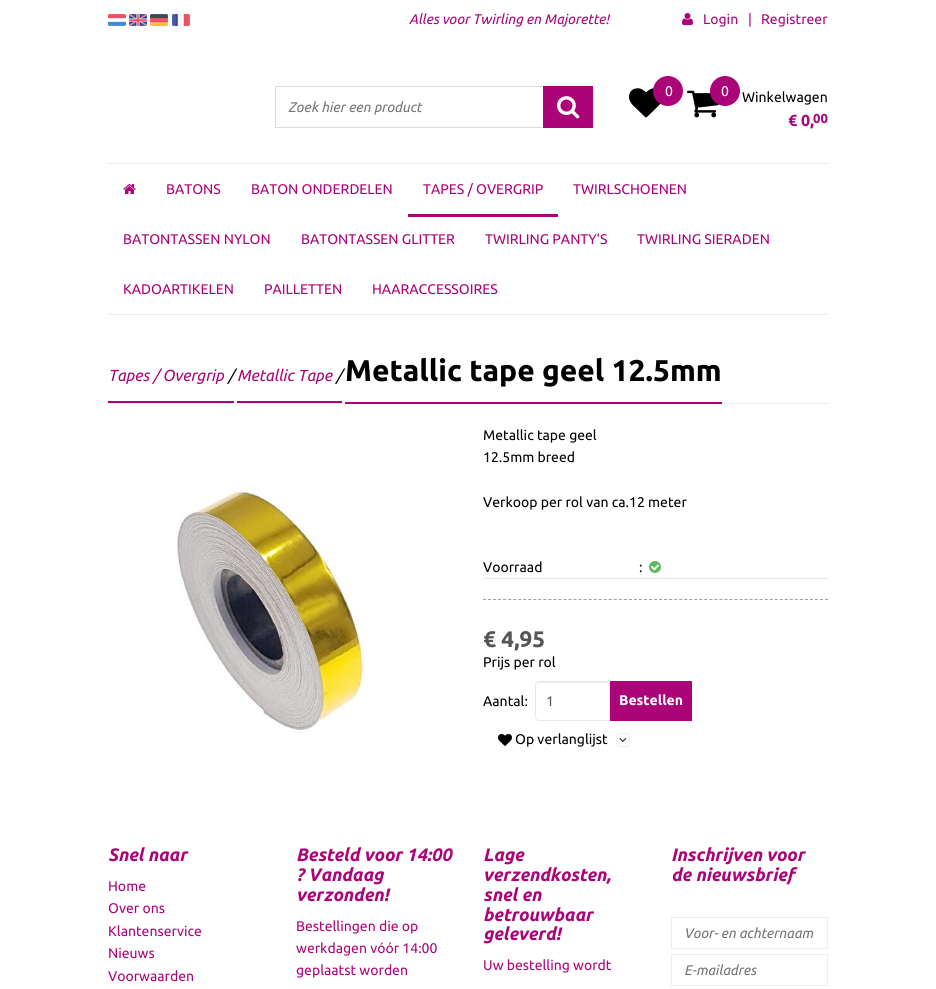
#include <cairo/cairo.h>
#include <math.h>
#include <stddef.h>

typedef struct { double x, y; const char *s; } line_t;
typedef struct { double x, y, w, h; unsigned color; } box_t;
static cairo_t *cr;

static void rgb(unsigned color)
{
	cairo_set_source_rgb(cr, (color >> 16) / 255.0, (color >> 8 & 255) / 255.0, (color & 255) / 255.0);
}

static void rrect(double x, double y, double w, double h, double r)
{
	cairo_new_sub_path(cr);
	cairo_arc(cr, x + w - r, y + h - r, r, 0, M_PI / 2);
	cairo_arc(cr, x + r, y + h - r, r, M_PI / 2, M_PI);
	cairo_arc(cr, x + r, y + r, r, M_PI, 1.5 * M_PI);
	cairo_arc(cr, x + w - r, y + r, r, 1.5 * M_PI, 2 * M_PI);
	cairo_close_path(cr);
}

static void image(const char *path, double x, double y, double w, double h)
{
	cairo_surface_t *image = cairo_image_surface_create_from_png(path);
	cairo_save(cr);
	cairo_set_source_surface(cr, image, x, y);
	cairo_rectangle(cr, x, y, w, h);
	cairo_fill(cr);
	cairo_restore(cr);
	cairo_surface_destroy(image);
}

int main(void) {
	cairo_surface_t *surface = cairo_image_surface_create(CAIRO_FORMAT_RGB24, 936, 989);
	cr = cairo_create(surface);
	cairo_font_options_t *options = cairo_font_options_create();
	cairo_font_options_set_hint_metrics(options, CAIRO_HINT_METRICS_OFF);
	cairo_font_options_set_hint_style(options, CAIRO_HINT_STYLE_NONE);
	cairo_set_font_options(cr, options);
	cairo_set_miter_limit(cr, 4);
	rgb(0xffffff);
	cairo_paint(cr);
	image("img/1.png", 108, 14, 18, 12);
	image("img/2.png", 129, 14, 18, 12);
	image("img/3.png", 150, 14, 18, 12);
	image("img/4.png", 172, 14, 18, 12);
	image("img/5.png", 682, 13, 11, 12);
	cairo_rectangle(cr, 275.5, 86.5, 302, 41);
	rgb(0xdcdcdc);
	cairo_set_line_width(cr, 1);
	cairo_stroke(cr);
	rgb(0xab0479);
	cairo_rectangle(cr, 543, 86, 50, 42);
	cairo_fill(cr);
	image("img/6.png", 557, 96, 23, 23);
	image("img/7.png", 629, 88, 32, 30);
	cairo_arc(cr, 668, 91, 15, 0, 2 * M_PI);
	cairo_fill(cr);
	image("img/8.png", 687, 90, 32, 28);
	cairo_arc(cr, 725, 91, 15, 0, 2 * M_PI);
	cairo_fill(cr);
	rgb(0xeeeeee);
	cairo_rectangle(cr, 108, 163, 720, 1);
	cairo_fill(cr);
	cairo_rectangle(cr, 108, 314, 720, 1);
	cairo_fill(cr);
	image("img/9.png", 123, 184, 13, 10);
	{
		static const box_t items[] = {
			{408, 214, 150, 3, 0xab0479},
			{108, 401, 126, 2, 0xab0479},
			{237, 401, 105, 2, 0xab0479},
			{108, 403, 720, 1, 0xeeeeee},
			{345, 402, 377, 2, 0xab0479},
		};
		for (size_t i = 0; i < sizeof items / sizeof *items; i++) {
			rgb(items[i].color);
			cairo_rectangle(cr, items[i].x, items[i].y, items[i].w, items[i].h);
			cairo_fill(cr);
		}
	}
	image("img/10.png", 175, 488, 191, 246);
	image("img/11.png", 649, 561, 12, 12);
	rgb(0xe8e8e8);
	cairo_rectangle(cr, 483, 578, 345, 1);
	cairo_fill(cr);
	cairo_new_path(cr);
	cairo_move_to(cr, 483, 599.5);
	cairo_line_to(cr, 828, 599.5);
	rgb(0xa0a0a0);
	cairo_set_dash(cr, (double[]){3, 2.03}, 2, 0);
	cairo_stroke(cr);
	rgb(0xececec);
	cairo_new_path(cr);
	cairo_move_to(cr, 539, 683);
	cairo_line_to(cr, 606, 683);
	cairo_curve_to(cr, 608, 683, 609, 684, 609, 686);
	cairo_curve_to(cr, 609, 679, 599, 682, 595, 682);
	cairo_line_to(cr, 550, 682);
	cairo_curve_to(cr, 546, 682, 536, 679, 536, 686);
	cairo_curve_to(cr, 536, 684, 537, 683, 539, 683);
	cairo_close_path(cr);
	cairo_fill(cr);
	rrect(535.5, 681.5, 74, 39, 3.5);
	rgb(0xe8e8e8);
	cairo_set_dash(cr, NULL, 0, 0);
	cairo_stroke(cr);
	rgb(0xab0479);
	cairo_rectangle(cr, 610, 681, 82, 40);
	cairo_fill(cr);
	image("img/12.png", 498, 734, 14, 12);
	rrect(616.5, 733.5, 13, 13, 2.5);
	rgb(0xeeeeee);
	cairo_stroke(cr);
	image("img/13.png", 619, 738, 8, 4);
	cairo_rectangle(cr, 671.5, 917.5, 156, 31);
	cairo_stroke(cr);
	cairo_rectangle(cr, 671.5, 954.5, 156, 31);
	cairo_stroke(cr);
	cairo_select_font_face(cr, "Ubuntu", CAIRO_FONT_SLANT_ITALIC, CAIRO_FONT_WEIGHT_NORMAL);
	cairo_set_font_size(cr, 14);
	rgb(0xab0479);
	cairo_move_to(cr, 409, 24);
	cairo_show_text(cr, "Alles voor Twirling en Majorette!");
	cairo_select_font_face(cr, "Ubuntu", CAIRO_FONT_SLANT_NORMAL, CAIRO_FONT_WEIGHT_NORMAL);
	{
		static const line_t items[] = {
			{703, 24, "Login"},
			{748, 24, "|"},
			{761, 24, "Registreer"},
		};
		for (size_t i = 0; i < sizeof items / sizeof *items; i++) {
			cairo_move_to(cr, items[i].x, items[i].y);
			cairo_show_text(cr, items[i].s);
		}
	}
	cairo_select_font_face(cr, "Ubuntu", CAIRO_FONT_SLANT_ITALIC, CAIRO_FONT_WEIGHT_NORMAL);
	rgb(0x757575);
	cairo_move_to(cr, 288, 112);
	cairo_show_text(cr, "Zoek hier een product");
	cairo_select_font_face(cr, "Ubuntu", CAIRO_FONT_SLANT_NORMAL, CAIRO_FONT_WEIGHT_NORMAL);
	rgb(0xffffff);
	cairo_move_to(cr, 665, 96);
	cairo_show_text(cr, "0");
	cairo_move_to(cr, 721, 96);
	cairo_show_text(cr, "0");
	rgb(0x000000);
	cairo_move_to(cr, 742, 102);
	cairo_show_text(cr, "Winkelwagen");
	cairo_select_font_face(cr, "Ubuntu", CAIRO_FONT_SLANT_NORMAL, CAIRO_FONT_WEIGHT_BOLD);
	cairo_set_font_size(cr, 16);
	rgb(0xab0479);
	cairo_move_to(cr, 788, 126);
	cairo_show_text(cr, "€ 0,");
	cairo_set_font_size(cr, 13);
	cairo_move_to(cr, 813, 123);
	cairo_show_text(cr, "00");
	cairo_select_font_face(cr, "Ubuntu", CAIRO_FONT_SLANT_NORMAL, CAIRO_FONT_WEIGHT_NORMAL);
	cairo_set_font_size(cr, 14);
	{
		static const line_t items[] = {
			{166, 194, "BATONS"},
			{251, 194, "BATON ONDERDELEN"},
			{423, 194, "TAPES / OVERGRIP"},
			{573, 194, "TWIRLSCHOENEN"},
			{123, 244, "BATONTASSEN NYLON"},
			{301, 244, "BATONTASSEN GLITTER"},
			{485, 244, "TWIRLING PANTY'S"},
			{637, 244, "TWIRLING SIERADEN"},
			{123, 294, "KADOARTIKELEN"},
			{264, 294, "PAILLETTEN"},
			{372, 294, "HAARACCESSOIRES"},
		};
		for (size_t i = 0; i < sizeof items / sizeof *items; i++) {
			cairo_move_to(cr, items[i].x, items[i].y);
			cairo_show_text(cr, items[i].s);
		}
	}
	cairo_select_font_face(cr, "Ubuntu", CAIRO_FONT_SLANT_ITALIC, CAIRO_FONT_WEIGHT_NORMAL);
	cairo_set_font_size(cr, 16);
	cairo_move_to(cr, 108, 381);
	cairo_show_text(cr, "Tapes / Overgrip");
	rgb(0x000000);
	cairo_move_to(cr, 228, 381);
	cairo_show_text(cr, "/");
	rgb(0xab0479);
	cairo_move_to(cr, 237, 381);
	cairo_show_text(cr, "Metallic Tape");
	rgb(0x000000);
	cairo_move_to(cr, 336, 381);
	cairo_show_text(cr, "/");
	cairo_select_font_face(cr, "Ubuntu", CAIRO_FONT_SLANT_NORMAL, CAIRO_FONT_WEIGHT_BOLD);
	cairo_set_font_size(cr, 30);
	cairo_move_to(cr, 345, 381);
	cairo_show_text(cr, "Metallic tape geel 12.5mm");
	cairo_select_font_face(cr, "Ubuntu", CAIRO_FONT_SLANT_NORMAL, CAIRO_FONT_WEIGHT_NORMAL);
	cairo_set_font_size(cr, 14);
	{
		static const line_t items[] = {
			{483, 440, "Metallic tape geel"},
			{483, 462, "12.5mm breed"},
			{483, 507, "Verkoop per rol van ca.12 meter"},
			{483, 572, "Voorraad"},
			{639, 572, ":"},
		};
		for (size_t i = 0; i < sizeof items / sizeof *items; i++) {
			cairo_move_to(cr, items[i].x, items[i].y);
			cairo_show_text(cr, items[i].s);
		}
	}
	cairo_select_font_face(cr, "Ubuntu", CAIRO_FONT_SLANT_NORMAL, CAIRO_FONT_WEIGHT_BOLD);
	cairo_set_font_size(cr, 22.5);
	rgb(0x555555);
	cairo_move_to(cr, 483, 647);
	cairo_show_text(cr, "€ 4,95");
	cairo_select_font_face(cr, "Ubuntu", CAIRO_FONT_SLANT_NORMAL, CAIRO_FONT_WEIGHT_NORMAL);
	cairo_set_font_size(cr, 14);
	rgb(0x000000);
	cairo_move_to(cr, 483, 667);
	cairo_show_text(cr, "Prijs per rol");
	cairo_move_to(cr, 483, 706);
	cairo_show_text(cr, "Aantal:");
	rgb(0x555555);
	cairo_move_to(cr, 546, 706);
	cairo_show_text(cr, "1");
	cairo_select_font_face(cr, "Ubuntu", CAIRO_FONT_SLANT_NORMAL, CAIRO_FONT_WEIGHT_BOLD);
	rgb(0xffffff);
	cairo_move_to(cr, 619, 705);
	cairo_show_text(cr, "Bestellen");
	cairo_select_font_face(cr, "Ubuntu", CAIRO_FONT_SLANT_NORMAL, CAIRO_FONT_WEIGHT_NORMAL);
	rgb(0x000000);
	cairo_move_to(cr, 515, 744);
	cairo_show_text(cr, "Op verlanglijst");
	cairo_select_font_face(cr, "Ubuntu", CAIRO_FONT_SLANT_ITALIC, CAIRO_FONT_WEIGHT_BOLD);
	cairo_set_font_size(cr, 18);
	rgb(0xab0479);
	cairo_move_to(cr, 108, 861);
	cairo_show_text(cr, "Snel naar");
	cairo_select_font_face(cr, "Ubuntu", CAIRO_FONT_SLANT_NORMAL, CAIRO_FONT_WEIGHT_NORMAL);
	cairo_set_font_size(cr, 14);
	{
		static const line_t items[] = {
			{108, 891, "Home"},
			{108, 913, "Over ons"},
			{108, 936, "Klantenservice"},
			{108, 958, "Nieuws"},
			{108, 981, "Voorwaarden"},
		};
		for (size_t i = 0; i < sizeof items / sizeof *items; i++) {
			cairo_move_to(cr, items[i].x, items[i].y);
			cairo_show_text(cr, items[i].s);
		}
	}
	cairo_select_font_face(cr, "Ubuntu", CAIRO_FONT_SLANT_ITALIC, CAIRO_FONT_WEIGHT_BOLD);
	cairo_set_font_size(cr, 18);
	{
		static const line_t items[] = {
			{296, 861, "Besteld voor 14:00"},
			{296, 881, "? Vandaag"},
			{296, 901, "verzonden!"},
		};
		for (size_t i = 0; i < sizeof items / sizeof *items; i++) {
			cairo_move_to(cr, items[i].x, items[i].y);
			cairo_show_text(cr, items[i].s);
		}
	}
	cairo_select_font_face(cr, "Ubuntu", CAIRO_FONT_SLANT_NORMAL, CAIRO_FONT_WEIGHT_NORMAL);
	cairo_set_font_size(cr, 14);
	{
		static const line_t items[] = {
			{296, 931, "Bestellingen die op"},
			{296, 953, "werkdagen vóór 14:00"},
			{296, 975, "geplaatst worden"},
		};
		for (size_t i = 0; i < sizeof items / sizeof *items; i++) {
			cairo_move_to(cr, items[i].x, items[i].y);
			cairo_show_text(cr, items[i].s);
		}
	}
	cairo_select_font_face(cr, "Ubuntu", CAIRO_FONT_SLANT_ITALIC, CAIRO_FONT_WEIGHT_BOLD);
	cairo_set_font_size(cr, 18);
	{
		static const line_t items[] = {
			{483, 861, "Lage"},
			{483, 881, "verzendkosten,"},
			{483, 901, "snel en"},
			{483, 921, "betrouwbaar"},
			{483, 940, "geleverd!"},
		};
		for (size_t i = 0; i < sizeof items / sizeof *items; i++) {
			cairo_move_to(cr, items[i].x, items[i].y);
			cairo_show_text(cr, items[i].s);
		}
	}
	cairo_select_font_face(cr, "Ubuntu", CAIRO_FONT_SLANT_NORMAL, CAIRO_FONT_WEIGHT_NORMAL);
	cairo_set_font_size(cr, 14);
	cairo_move_to(cr, 483, 970);
	cairo_show_text(cr, "Uw bestelling wordt");
	cairo_select_font_face(cr, "Ubuntu", CAIRO_FONT_SLANT_ITALIC, CAIRO_FONT_WEIGHT_BOLD);
	cairo_set_font_size(cr, 18);
	cairo_move_to(cr, 671, 861);
	cairo_show_text(cr, "Inschrijven voor");
	cairo_move_to(cr, 671, 881);
	cairo_show_text(cr, "de nieuwsbrief");
	cairo_select_font_face(cr, "Ubuntu", CAIRO_FONT_SLANT_ITALIC, CAIRO_FONT_WEIGHT_NORMAL);
	cairo_set_font_size(cr, 14);
	rgb(0x757575);
	cairo_move_to(cr, 684, 938);
	cairo_show_text(cr, "Voor- en achternaam");
	cairo_move_to(cr, 684, 975);
	cairo_show_text(cr, "E-mailadres");
	cairo_surface_write_to_png(surface, "page.png");
	cairo_font_options_destroy(options);
	cairo_destroy(cr);
	cairo_surface_destroy(surface);
	return 0;
}
